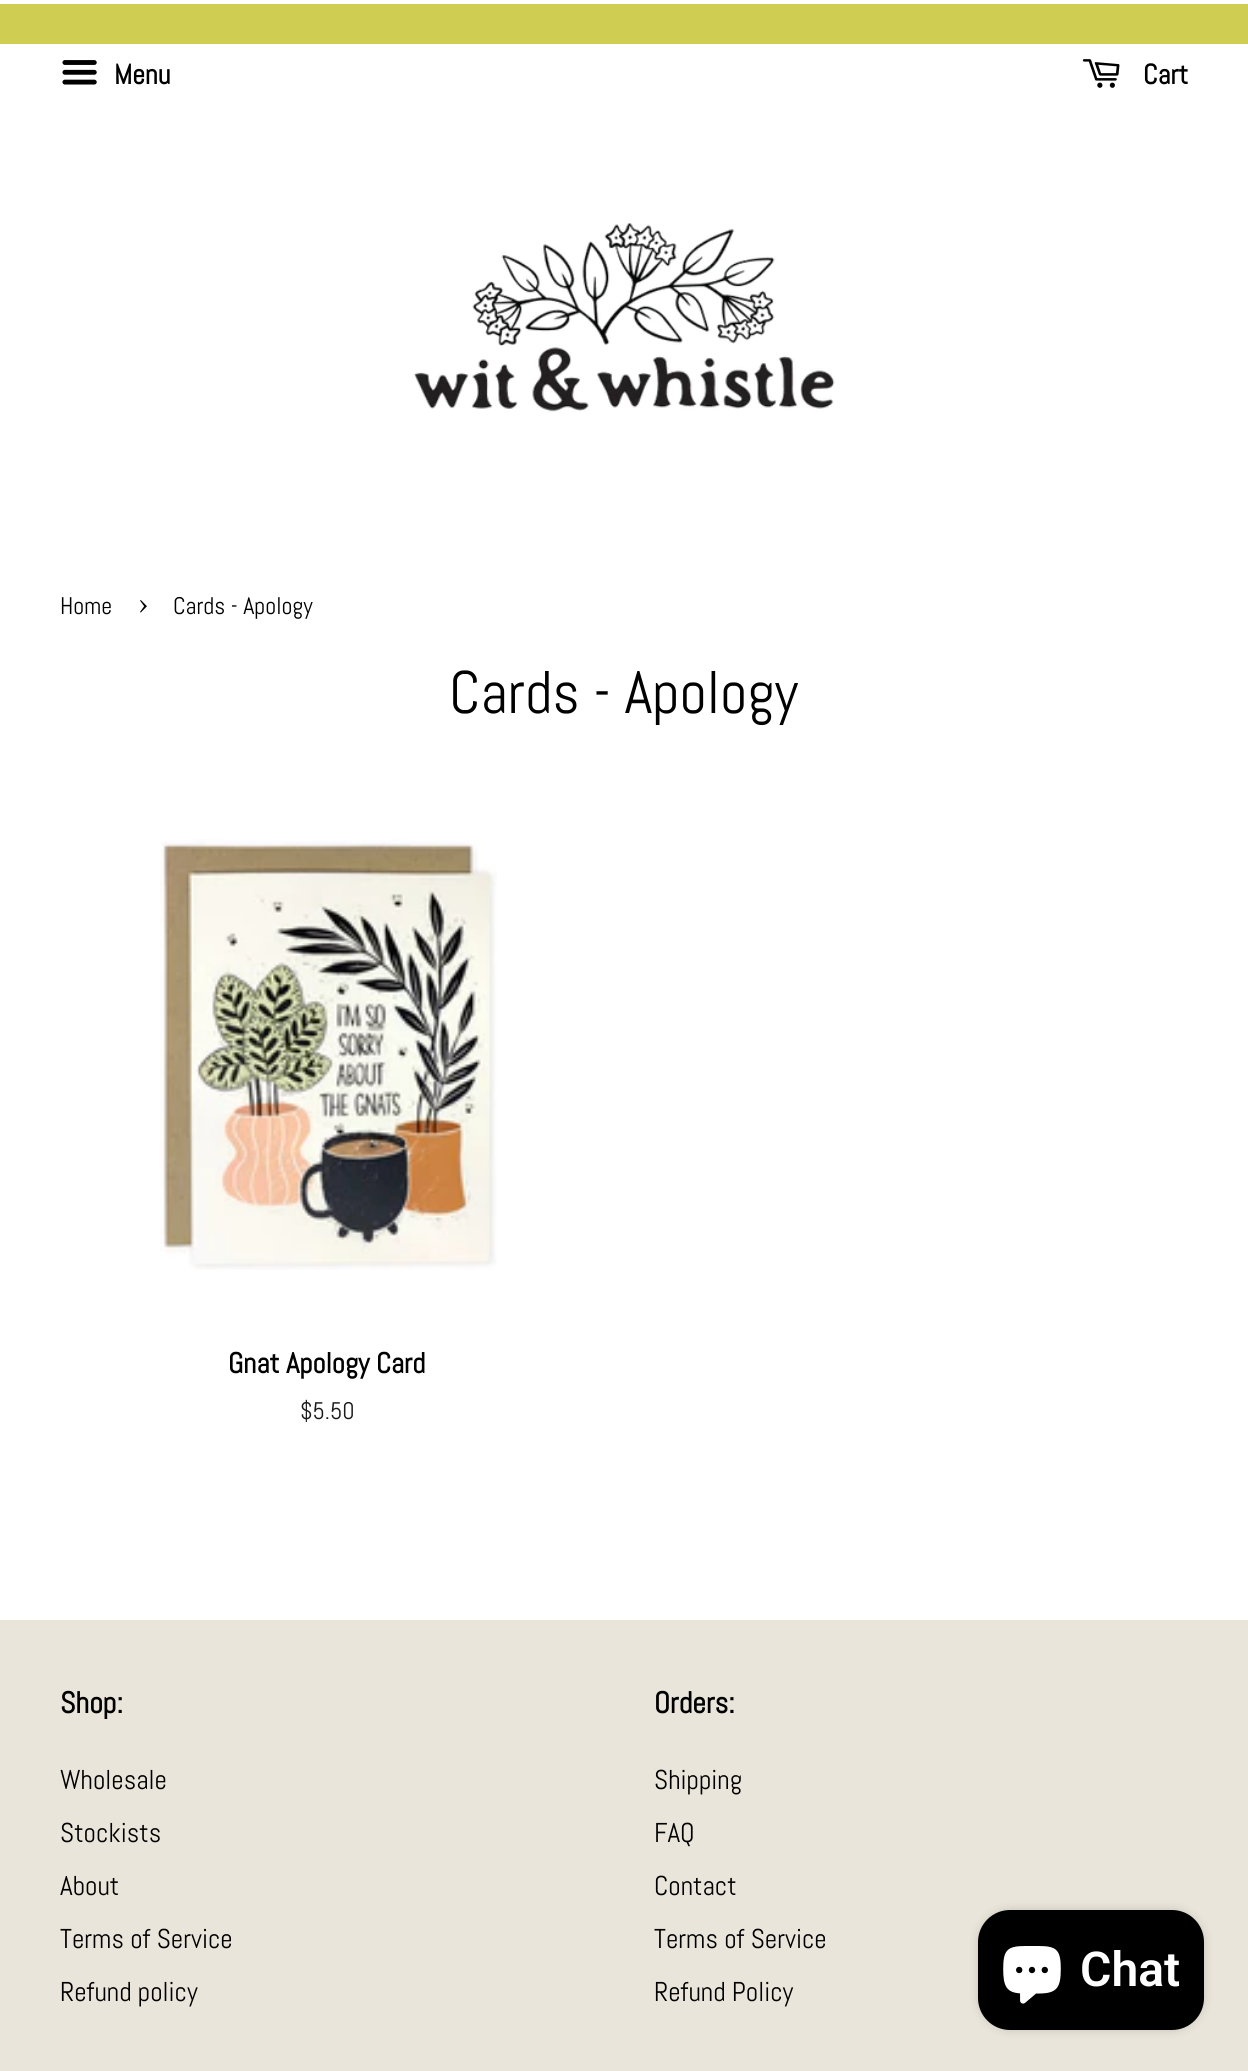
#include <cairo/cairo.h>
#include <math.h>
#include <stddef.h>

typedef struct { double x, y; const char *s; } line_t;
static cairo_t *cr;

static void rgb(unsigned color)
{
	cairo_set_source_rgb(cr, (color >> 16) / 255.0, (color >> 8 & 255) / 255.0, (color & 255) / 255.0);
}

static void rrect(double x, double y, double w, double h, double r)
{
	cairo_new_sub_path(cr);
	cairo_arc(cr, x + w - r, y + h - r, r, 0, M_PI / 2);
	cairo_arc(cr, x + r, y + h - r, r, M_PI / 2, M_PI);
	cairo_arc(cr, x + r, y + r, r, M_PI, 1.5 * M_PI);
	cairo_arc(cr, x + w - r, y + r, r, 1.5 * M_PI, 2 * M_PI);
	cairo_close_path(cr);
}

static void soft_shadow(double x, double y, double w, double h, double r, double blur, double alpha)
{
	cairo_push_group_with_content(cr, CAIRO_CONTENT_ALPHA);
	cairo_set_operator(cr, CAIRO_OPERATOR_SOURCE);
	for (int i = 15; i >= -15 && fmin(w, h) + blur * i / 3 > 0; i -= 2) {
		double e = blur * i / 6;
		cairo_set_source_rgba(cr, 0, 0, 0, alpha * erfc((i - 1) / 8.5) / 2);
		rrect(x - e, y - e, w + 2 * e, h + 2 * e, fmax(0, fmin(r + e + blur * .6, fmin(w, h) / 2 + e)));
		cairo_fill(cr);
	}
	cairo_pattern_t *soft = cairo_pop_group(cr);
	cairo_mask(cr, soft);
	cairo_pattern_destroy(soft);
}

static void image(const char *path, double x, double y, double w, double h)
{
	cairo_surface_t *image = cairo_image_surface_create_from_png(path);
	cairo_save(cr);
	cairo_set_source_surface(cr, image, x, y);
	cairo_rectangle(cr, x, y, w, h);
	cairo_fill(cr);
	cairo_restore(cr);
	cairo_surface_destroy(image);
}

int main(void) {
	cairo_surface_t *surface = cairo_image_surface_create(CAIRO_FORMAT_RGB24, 1248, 2071);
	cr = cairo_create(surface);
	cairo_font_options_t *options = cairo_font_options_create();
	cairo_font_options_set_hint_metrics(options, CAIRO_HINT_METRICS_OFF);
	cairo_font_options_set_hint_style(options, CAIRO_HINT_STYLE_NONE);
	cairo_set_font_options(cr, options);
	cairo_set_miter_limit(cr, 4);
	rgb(0xffffff);
	cairo_paint(cr);
	rgb(0xcfcd52);
	cairo_rectangle(cr, 0, 4, 1248, 40);
	cairo_fill(cr);
	image("img/1.png", 62, 60, 35, 25);
	image("img/2.png", 1082, 59, 38, 29);
	image("img/3.png", 413, 222, 422, 190);
	image("img/4.png", 160, 839, 337, 431);
	rgb(0xe9e5da);
	cairo_rectangle(cr, 0, 1620, 1248, 451);
	cairo_fill(cr);
	rgb(0x000000);
	soft_shadow(978, 1910, 226, 120, 32, 5, 0.15);
	rgb(0x000000);
	rrect(978, 1910, 226, 120, 32);
	cairo_fill(cr);
	image("img/5.png", 1003, 1946, 58, 58);
	cairo_select_font_face(cr, "Abel", CAIRO_FONT_SLANT_NORMAL, CAIRO_FONT_WEIGHT_BOLD);
	cairo_set_font_size(cr, 28);
	cairo_move_to(cr, 114, 84);
	cairo_show_text(cr, "Menu");
	cairo_move_to(cr, 1143, 84);
	cairo_show_text(cr, "Cart");
	cairo_select_font_face(cr, "Abel", CAIRO_FONT_SLANT_NORMAL, CAIRO_FONT_WEIGHT_NORMAL);
	cairo_set_font_size(cr, 24);
	cairo_move_to(cr, 60, 614);
	cairo_show_text(cr, "Home");
	cairo_set_font_size(cr, 34);
	cairo_move_to(cr, 138, 614);
	cairo_show_text(cr, "›");
	cairo_set_font_size(cr, 24);
	cairo_move_to(cr, 173, 614);
	cairo_show_text(cr, "Cards - Apology");
	cairo_set_font_size(cr, 60);
	cairo_move_to(cr, 449, 713);
	cairo_show_text(cr, "Cards - Apology");
	cairo_select_font_face(cr, "Abel", CAIRO_FONT_SLANT_NORMAL, CAIRO_FONT_WEIGHT_BOLD);
	cairo_set_font_size(cr, 28.75);
	cairo_move_to(cr, 228, 1373);
	cairo_show_text(cr, "Gnat Apology Card");
	cairo_select_font_face(cr, "Abel", CAIRO_FONT_SLANT_NORMAL, CAIRO_FONT_WEIGHT_NORMAL);
	cairo_set_font_size(cr, 24);
	rgb(0x1a1a1a);
	cairo_move_to(cr, 300, 1419);
	cairo_show_text(cr, "$5.50");
	cairo_select_font_face(cr, "Abel", CAIRO_FONT_SLANT_NORMAL, CAIRO_FONT_WEIGHT_BOLD);
	cairo_set_font_size(cr, 30);
	rgb(0x000000);
	cairo_move_to(cr, 60, 1713);
	cairo_show_text(cr, "Shop:");
	cairo_select_font_face(cr, "Abel", CAIRO_FONT_SLANT_NORMAL, CAIRO_FONT_WEIGHT_NORMAL);
	cairo_set_font_size(cr, 27.25);
	{
		static const line_t items[] = {
			{60, 1789, "Wholesale"},
			{60, 1842, "Stockists"},
			{60, 1895, "About"},
			{60, 1948, "Terms of Service"},
			{60, 2001, "Refund policy"},
		};
		for (size_t i = 0; i < sizeof items / sizeof *items; i++) {
			cairo_move_to(cr, items[i].x, items[i].y);
			cairo_show_text(cr, items[i].s);
		}
	}
	cairo_select_font_face(cr, "Abel", CAIRO_FONT_SLANT_NORMAL, CAIRO_FONT_WEIGHT_BOLD);
	cairo_set_font_size(cr, 30);
	cairo_move_to(cr, 654, 1713);
	cairo_show_text(cr, "Orders:");
	cairo_select_font_face(cr, "Abel", CAIRO_FONT_SLANT_NORMAL, CAIRO_FONT_WEIGHT_NORMAL);
	cairo_set_font_size(cr, 27.25);
	{
		static const line_t items[] = {
			{654, 1789, "Shipping"},
			{654, 1842, "FAQ"},
			{654, 1895, "Contact"},
			{654, 1948, "Terms of Service"},
			{654, 2001, "Refund Policy"},
		};
		for (size_t i = 0; i < sizeof items / sizeof *items; i++) {
			cairo_move_to(cr, items[i].x, items[i].y);
			cairo_show_text(cr, items[i].s);
		}
	}
	cairo_select_font_face(cr, "Roboto SemiBold", CAIRO_FONT_SLANT_NORMAL, CAIRO_FONT_WEIGHT_NORMAL);
	cairo_set_font_size(cr, 48);
	rgb(0xffffff);
	cairo_move_to(cr, 1080, 1986);
	cairo_show_text(cr, "Chat");
	cairo_surface_write_to_png(surface, "page.png");
	cairo_font_options_destroy(options);
	cairo_destroy(cr);
	cairo_surface_destroy(surface);
	return 0;
}
